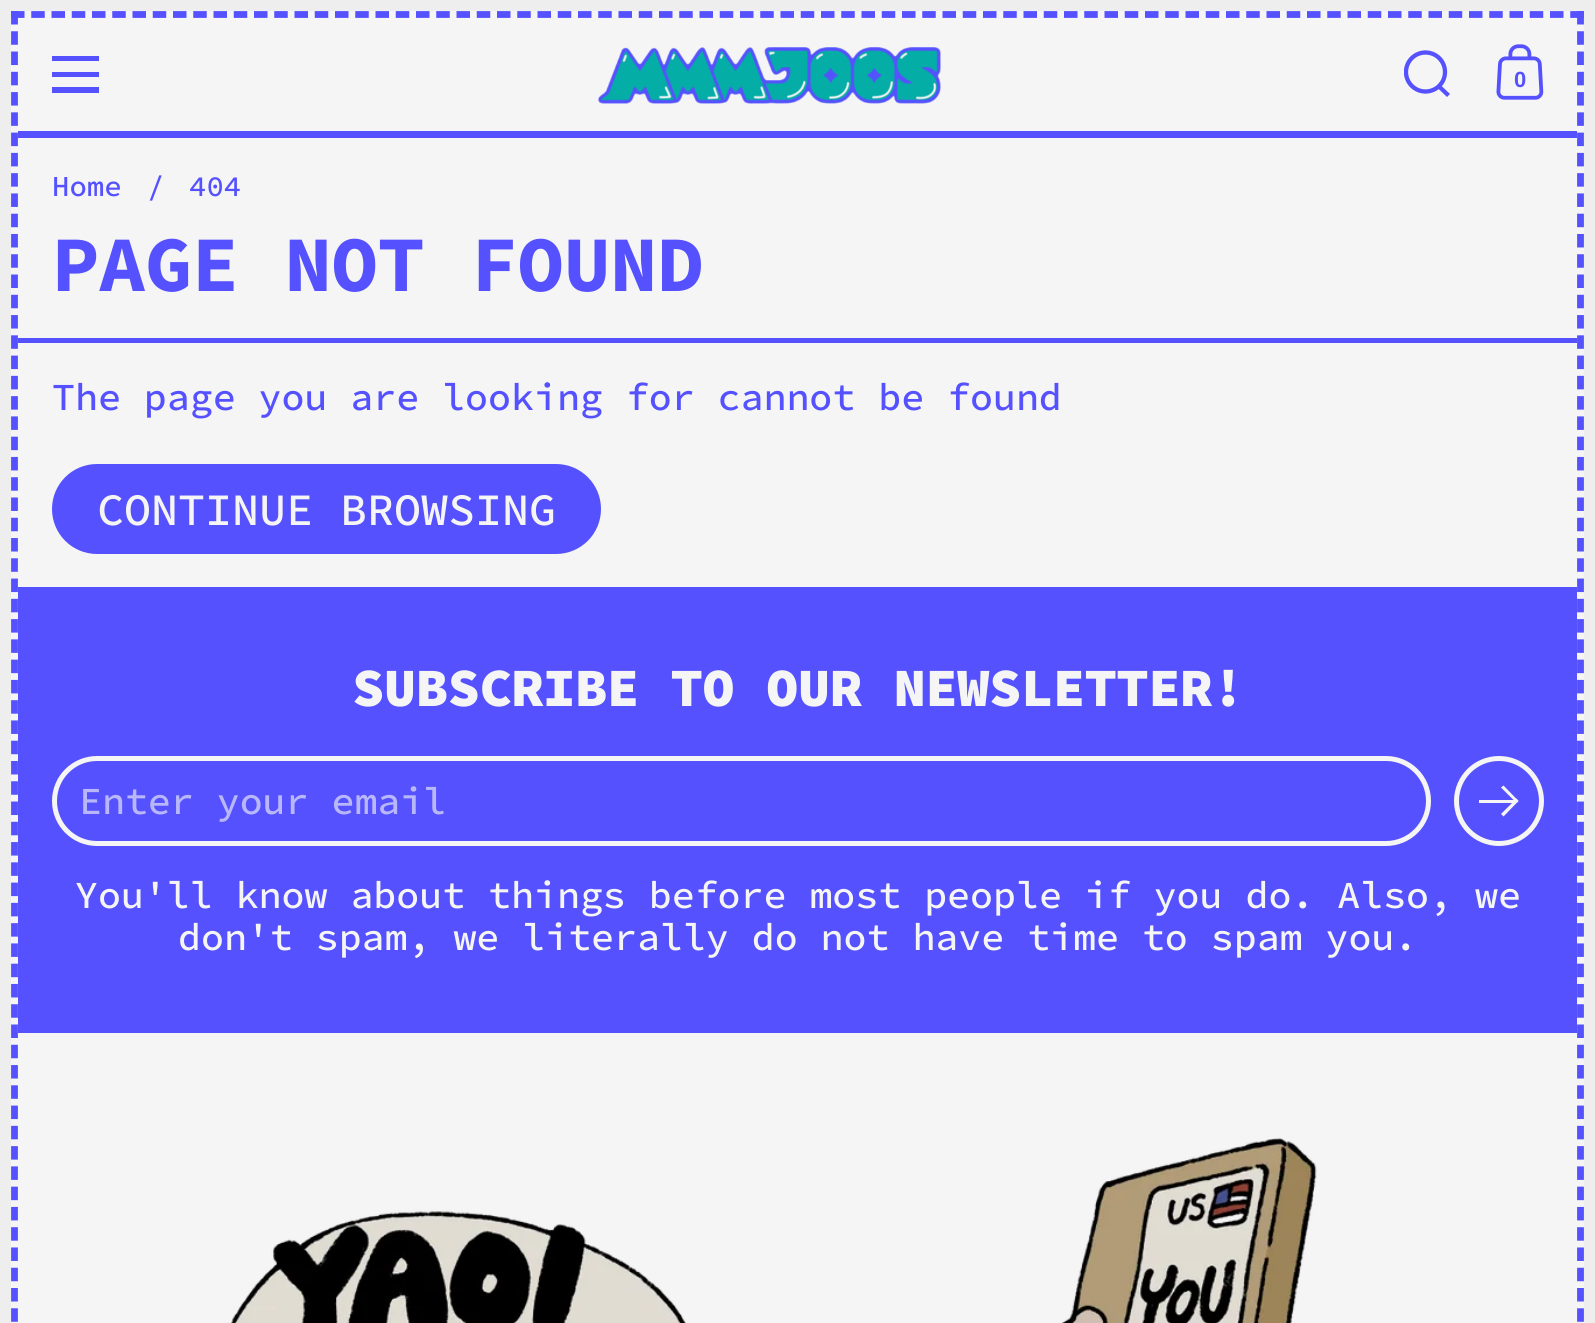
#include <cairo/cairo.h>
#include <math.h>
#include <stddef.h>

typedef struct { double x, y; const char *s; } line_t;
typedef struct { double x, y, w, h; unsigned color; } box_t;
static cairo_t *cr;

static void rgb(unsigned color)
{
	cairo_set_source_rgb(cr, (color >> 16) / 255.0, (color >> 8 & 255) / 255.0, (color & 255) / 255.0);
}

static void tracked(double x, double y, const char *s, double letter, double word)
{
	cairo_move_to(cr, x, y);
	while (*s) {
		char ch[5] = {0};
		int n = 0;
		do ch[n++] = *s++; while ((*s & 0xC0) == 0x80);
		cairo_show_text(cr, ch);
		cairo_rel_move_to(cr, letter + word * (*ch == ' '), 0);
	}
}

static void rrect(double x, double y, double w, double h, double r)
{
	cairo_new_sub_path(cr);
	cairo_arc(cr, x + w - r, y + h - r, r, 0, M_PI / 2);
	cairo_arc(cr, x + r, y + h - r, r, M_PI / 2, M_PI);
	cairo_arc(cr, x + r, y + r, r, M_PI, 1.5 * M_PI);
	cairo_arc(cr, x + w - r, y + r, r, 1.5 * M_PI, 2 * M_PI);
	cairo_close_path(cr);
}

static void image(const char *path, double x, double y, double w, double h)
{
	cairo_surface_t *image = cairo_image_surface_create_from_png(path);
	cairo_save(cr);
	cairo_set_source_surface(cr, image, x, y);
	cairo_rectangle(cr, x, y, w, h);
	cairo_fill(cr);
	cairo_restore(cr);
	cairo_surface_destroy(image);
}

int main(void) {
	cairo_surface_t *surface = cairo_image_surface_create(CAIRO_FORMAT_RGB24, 1595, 1323);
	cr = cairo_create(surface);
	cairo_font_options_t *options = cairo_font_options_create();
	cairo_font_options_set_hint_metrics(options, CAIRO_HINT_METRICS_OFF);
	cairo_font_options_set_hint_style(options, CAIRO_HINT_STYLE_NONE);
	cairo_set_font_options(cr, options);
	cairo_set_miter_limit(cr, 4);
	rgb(0xeeeeee);
	cairo_paint(cr);
	rgb(0xf5f5f5);
	cairo_rectangle(cr, 11, 11, 1573, 1312);
	cairo_fill(cr);
	cairo_new_path(cr);
	cairo_move_to(cr, 11, 14.5);
	cairo_line_to(cr, 1584, 14.5);
	rgb(0x5551ff);
	cairo_set_line_width(cr, 6.8);
	cairo_set_dash(cr, (double[]){13.5, 6.75}, 2, 0);
	cairo_stroke(cr);
	cairo_new_path(cr);
	cairo_move_to(cr, 1580.5, 11);
	cairo_line_to(cr, 1580.5, 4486.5);
	cairo_set_dash(cr, (double[]){13.5, 6.77}, 2, 0);
	cairo_stroke(cr);
	cairo_new_path(cr);
	cairo_move_to(cr, 14.5, 11);
	cairo_line_to(cr, 14.5, 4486.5);
	cairo_stroke(cr);
	{
		static const box_t items[] = {
			{52, 56, 47, 5, 0x5551ff},
			{52, 72, 47, 5, 0x5551ff},
			{52, 87, 47, 6, 0x5551ff},
		};
		for (size_t i = 0; i < sizeof items / sizeof *items; i++) {
			rgb(items[i].color);
			cairo_rectangle(cr, items[i].x, items[i].y, items[i].w, items[i].h);
			cairo_fill(cr);
		}
	}
	image("img/1.png", 598, 47, 343, 57);
	cairo_save(cr);
	cairo_rectangle(cr, 1404, 45, 47, 59);
	cairo_clip(cr);
	cairo_arc(cr, 1425.5, 72, 19.5, 0, 2 * M_PI);
	cairo_set_line_width(cr, 4.3);
	cairo_set_dash(cr, NULL, 0, 0);
	cairo_stroke(cr);
	cairo_restore(cr);
	cairo_new_path(cr);
	cairo_move_to(cr, 1436.5, 87);
	cairo_line_to(cr, 1439.5, 84);
	cairo_line_to(cr, 1450, 94);
	cairo_line_to(cr, 1447, 97);
	cairo_close_path(cr);
	cairo_fill(cr);
	image("img/2.png", 1496, 44, 48, 56);
	cairo_rectangle(cr, 18, 131, 1559, 7);
	cairo_fill(cr);
	cairo_rectangle(cr, 18, 338, 1559, 5);
	cairo_fill(cr);
	rrect(54.5, 466.5, 544, 85, 42.5);
	cairo_fill_preserve(cr);
	cairo_set_line_width(cr, 5);
	cairo_set_dash(cr, NULL, 0, 0);
	cairo_stroke(cr);
	cairo_rectangle(cr, 18, 587, 1559, 446);
	cairo_fill(cr);
	rrect(54.5, 758.5, 1374, 85, 42.5);
	rgb(0xf5f5f5);
	cairo_stroke(cr);
	cairo_arc(cr, 1499, 801, 42.5, 0, 2 * M_PI);
	cairo_stroke(cr);
	cairo_rectangle(cr, 1479, 800, 37, 3);
	cairo_fill(cr);
	cairo_new_path(cr);
	cairo_move_to(cr, 1503.5, 785.5);
	cairo_line_to(cr, 1518.5, 801);
	cairo_line_to(cr, 1516.5, 803);
	cairo_line_to(cr, 1501, 787.5);
	cairo_close_path(cr);
	cairo_fill(cr);
	cairo_new_path(cr);
	cairo_move_to(cr, 1501, 814);
	cairo_line_to(cr, 1516.5, 798.5);
	cairo_line_to(cr, 1518.5, 801);
	cairo_line_to(cr, 1503.5, 816.5);
	cairo_close_path(cr);
	cairo_fill(cr);
	image("img/3.png", 231, 1138, 1086, 185);
	cairo_select_font_face(cr, "Liberation Sans", CAIRO_FONT_SLANT_NORMAL, CAIRO_FONT_WEIGHT_BOLD);
	cairo_set_font_size(cr, 22);
	rgb(0x5551ff);
	cairo_move_to(cr, 1514, 87);
	cairo_show_text(cr, "0");
	cairo_select_font_face(cr, "Source Code Pro Medium", CAIRO_FONT_SLANT_NORMAL, CAIRO_FONT_WEIGHT_NORMAL);
	cairo_set_font_size(cr, 29);
	{
		static const line_t items[] = {
			{52, 196, "Home"},
			{147, 196, "/"},
			{189, 196, "404"},
		};
		for (size_t i = 0; i < sizeof items / sizeof *items; i++) {
			cairo_move_to(cr, items[i].x, items[i].y);
			cairo_show_text(cr, items[i].s);
		}
	}
	cairo_select_font_face(cr, "Source Code Pro", CAIRO_FONT_SLANT_NORMAL, CAIRO_FONT_WEIGHT_BOLD);
	cairo_set_font_size(cr, 78.75);
	tracked(52, 291, "PAGE NOT FOUND", -0.75, 0);
	cairo_select_font_face(cr, "Source Code Pro Medium", CAIRO_FONT_SLANT_NORMAL, CAIRO_FONT_WEIGHT_NORMAL);
	cairo_set_font_size(cr, 38.25);
	cairo_move_to(cr, 52, 410);
	cairo_show_text(cr, "The page you are looking for cannot be found");
	cairo_set_font_size(cr, 45);
	rgb(0xf5f5f5);
	cairo_move_to(cr, 97, 525);
	cairo_show_text(cr, "CONTINUE BROWSING");
	cairo_select_font_face(cr, "Source Code Pro Black", CAIRO_FONT_SLANT_NORMAL, CAIRO_FONT_WEIGHT_NORMAL);
	cairo_set_font_size(cr, 54);
	tracked(352, 706, "SUBSCRIBE TO OUR NEWSLETTER!", -0.55, 0);
	cairo_select_font_face(cr, "Source Code Pro Medium", CAIRO_FONT_SLANT_NORMAL, CAIRO_FONT_WEIGHT_NORMAL);
	cairo_set_font_size(cr, 38.25);
	rgb(0xb8b7f9);
	cairo_move_to(cr, 79, 814);
	cairo_show_text(cr, "Enter your email");
	rgb(0xf5f5f5);
	cairo_move_to(cr, 75, 908);
	cairo_show_text(cr, "You'll know about things before most people if you do. Also, we");
	cairo_move_to(cr, 178, 950);
	cairo_show_text(cr, "don't spam, we literally do not have time to spam you.");
	cairo_surface_write_to_png(surface, "page.png");
	cairo_font_options_destroy(options);
	cairo_destroy(cr);
	cairo_surface_destroy(surface);
	return 0;
}
